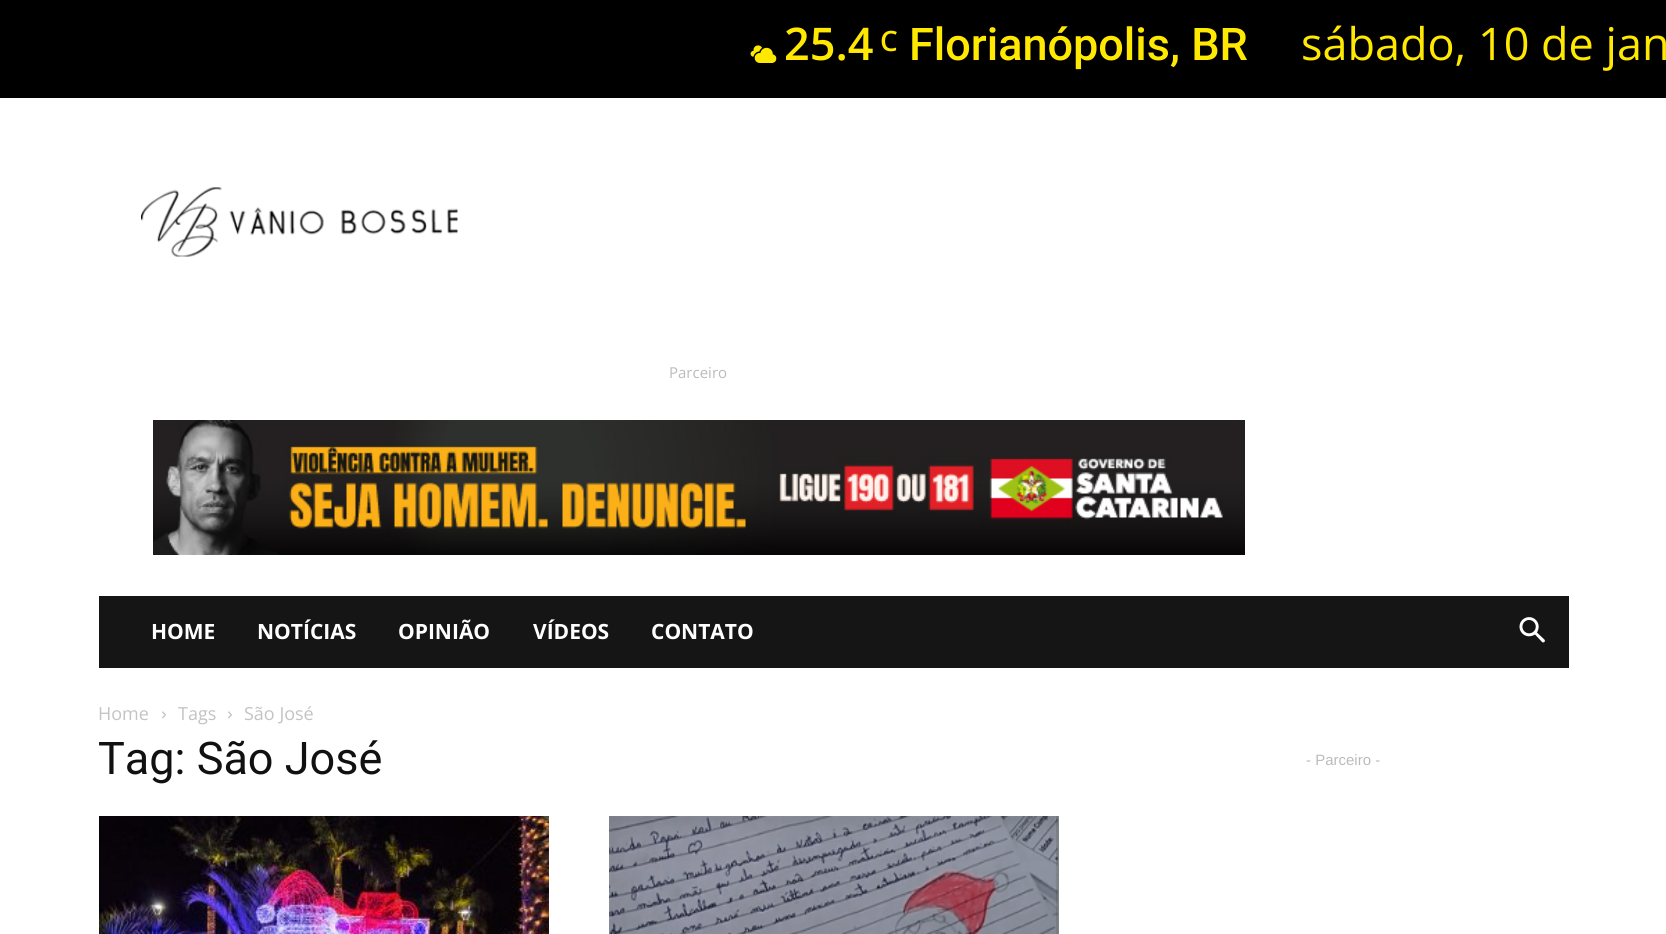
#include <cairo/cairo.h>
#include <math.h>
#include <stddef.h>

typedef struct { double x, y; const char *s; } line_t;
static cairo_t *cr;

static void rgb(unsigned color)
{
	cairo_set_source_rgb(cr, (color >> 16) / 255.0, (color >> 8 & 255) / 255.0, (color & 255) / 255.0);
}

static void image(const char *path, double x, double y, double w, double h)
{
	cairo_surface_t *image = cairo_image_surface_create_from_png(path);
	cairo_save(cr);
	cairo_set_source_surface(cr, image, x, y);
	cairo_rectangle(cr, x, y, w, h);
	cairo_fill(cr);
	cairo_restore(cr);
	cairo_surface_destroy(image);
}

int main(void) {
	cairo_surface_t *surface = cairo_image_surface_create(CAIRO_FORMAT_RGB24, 1666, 934);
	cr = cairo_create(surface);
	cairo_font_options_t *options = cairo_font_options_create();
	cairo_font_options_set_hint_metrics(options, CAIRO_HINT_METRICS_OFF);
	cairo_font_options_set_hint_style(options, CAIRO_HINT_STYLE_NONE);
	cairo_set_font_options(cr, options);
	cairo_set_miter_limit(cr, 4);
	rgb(0xffffff);
	cairo_paint(cr);
	rgb(0x000000);
	cairo_rectangle(cr, 0, 0, 1666, 98);
	cairo_fill(cr);
	image("img/1.png", 750, 45, 27, 18);
	image("img/2.png", 141, 187, 317, 70);
	image("img/3.png", 153, 420, 1092, 135);
	rgb(0x151515);
	cairo_rectangle(cr, 99, 596, 1470, 72);
	cairo_fill(cr);
	image("img/4.png", 1519, 617, 26, 26);
	image("img/5.png", 162, 711, 4, 8);
	image("img/5.png", 228, 711, 4, 8);
	image("img/6.png", 99, 816, 450, 118);
	image("img/7.png", 609, 816, 450, 118);
	cairo_select_font_face(cr, "Open Sans SemiBold", CAIRO_FONT_SLANT_NORMAL, CAIRO_FONT_WEIGHT_NORMAL);
	cairo_set_font_size(cr, 45);
	rgb(0xffe900);
	cairo_move_to(cr, 784, 60);
	cairo_show_text(cr, "25.4");
	cairo_set_font_size(cr, 28);
	cairo_move_to(cr, 880, 51);
	cairo_show_text(cr, "C");
	cairo_select_font_face(cr, "Roboto Medium", CAIRO_FONT_SLANT_NORMAL, CAIRO_FONT_WEIGHT_NORMAL);
	cairo_set_font_size(cr, 45);
	cairo_move_to(cr, 909, 60);
	cairo_show_text(cr, "Florianópolis, BR");
	cairo_select_font_face(cr, "Open Sans", CAIRO_FONT_SLANT_NORMAL, CAIRO_FONT_WEIGHT_NORMAL);
	cairo_move_to(cr, 1301, 60);
	cairo_show_text(cr, "sábado, 10 de jan");
	cairo_set_font_size(cr, 15);
	rgb(0xbbbbbb);
	cairo_move_to(cr, 669, 378);
	cairo_show_text(cr, "Parceiro");
	cairo_select_font_face(cr, "Open Sans", CAIRO_FONT_SLANT_NORMAL, CAIRO_FONT_WEIGHT_BOLD);
	cairo_set_font_size(cr, 21);
	rgb(0xffffff);
	{
		static const line_t items[] = {
			{151, 639, "HOME"},
			{257, 639, "NOTÍCIAS"},
			{398, 639, "OPINIÃO"},
			{533, 639, "VÍDEOS"},
			{651, 639, "CONTATO"},
		};
		for (size_t i = 0; i < sizeof items / sizeof *items; i++) {
			cairo_move_to(cr, items[i].x, items[i].y);
			cairo_show_text(cr, items[i].s);
		}
	}
	cairo_select_font_face(cr, "Open Sans", CAIRO_FONT_SLANT_NORMAL, CAIRO_FONT_WEIGHT_NORMAL);
	cairo_set_font_size(cr, 18);
	rgb(0xc3c3c3);
	{
		static const line_t items[] = {
			{98, 720, "Home"},
			{178, 720, "Tags"},
			{244, 720, "São José"},
		};
		for (size_t i = 0; i < sizeof items / sizeof *items; i++) {
			cairo_move_to(cr, items[i].x, items[i].y);
			cairo_show_text(cr, items[i].s);
		}
	}
	cairo_select_font_face(cr, "Roboto", CAIRO_FONT_SLANT_NORMAL, CAIRO_FONT_WEIGHT_NORMAL);
	cairo_set_font_size(cr, 45);
	rgb(0x111111);
	cairo_move_to(cr, 98, 774);
	cairo_show_text(cr, "Tag: São José");
	cairo_select_font_face(cr, "Liberation Sans", CAIRO_FONT_SLANT_NORMAL, CAIRO_FONT_WEIGHT_NORMAL);
	cairo_set_font_size(cr, 15);
	rgb(0xbbbbbb);
	cairo_move_to(cr, 1306, 765);
	cairo_show_text(cr, "- Parceiro -");
	cairo_surface_write_to_png(surface, "page.png");
	cairo_font_options_destroy(options);
	cairo_destroy(cr);
	cairo_surface_destroy(surface);
	return 0;
}
